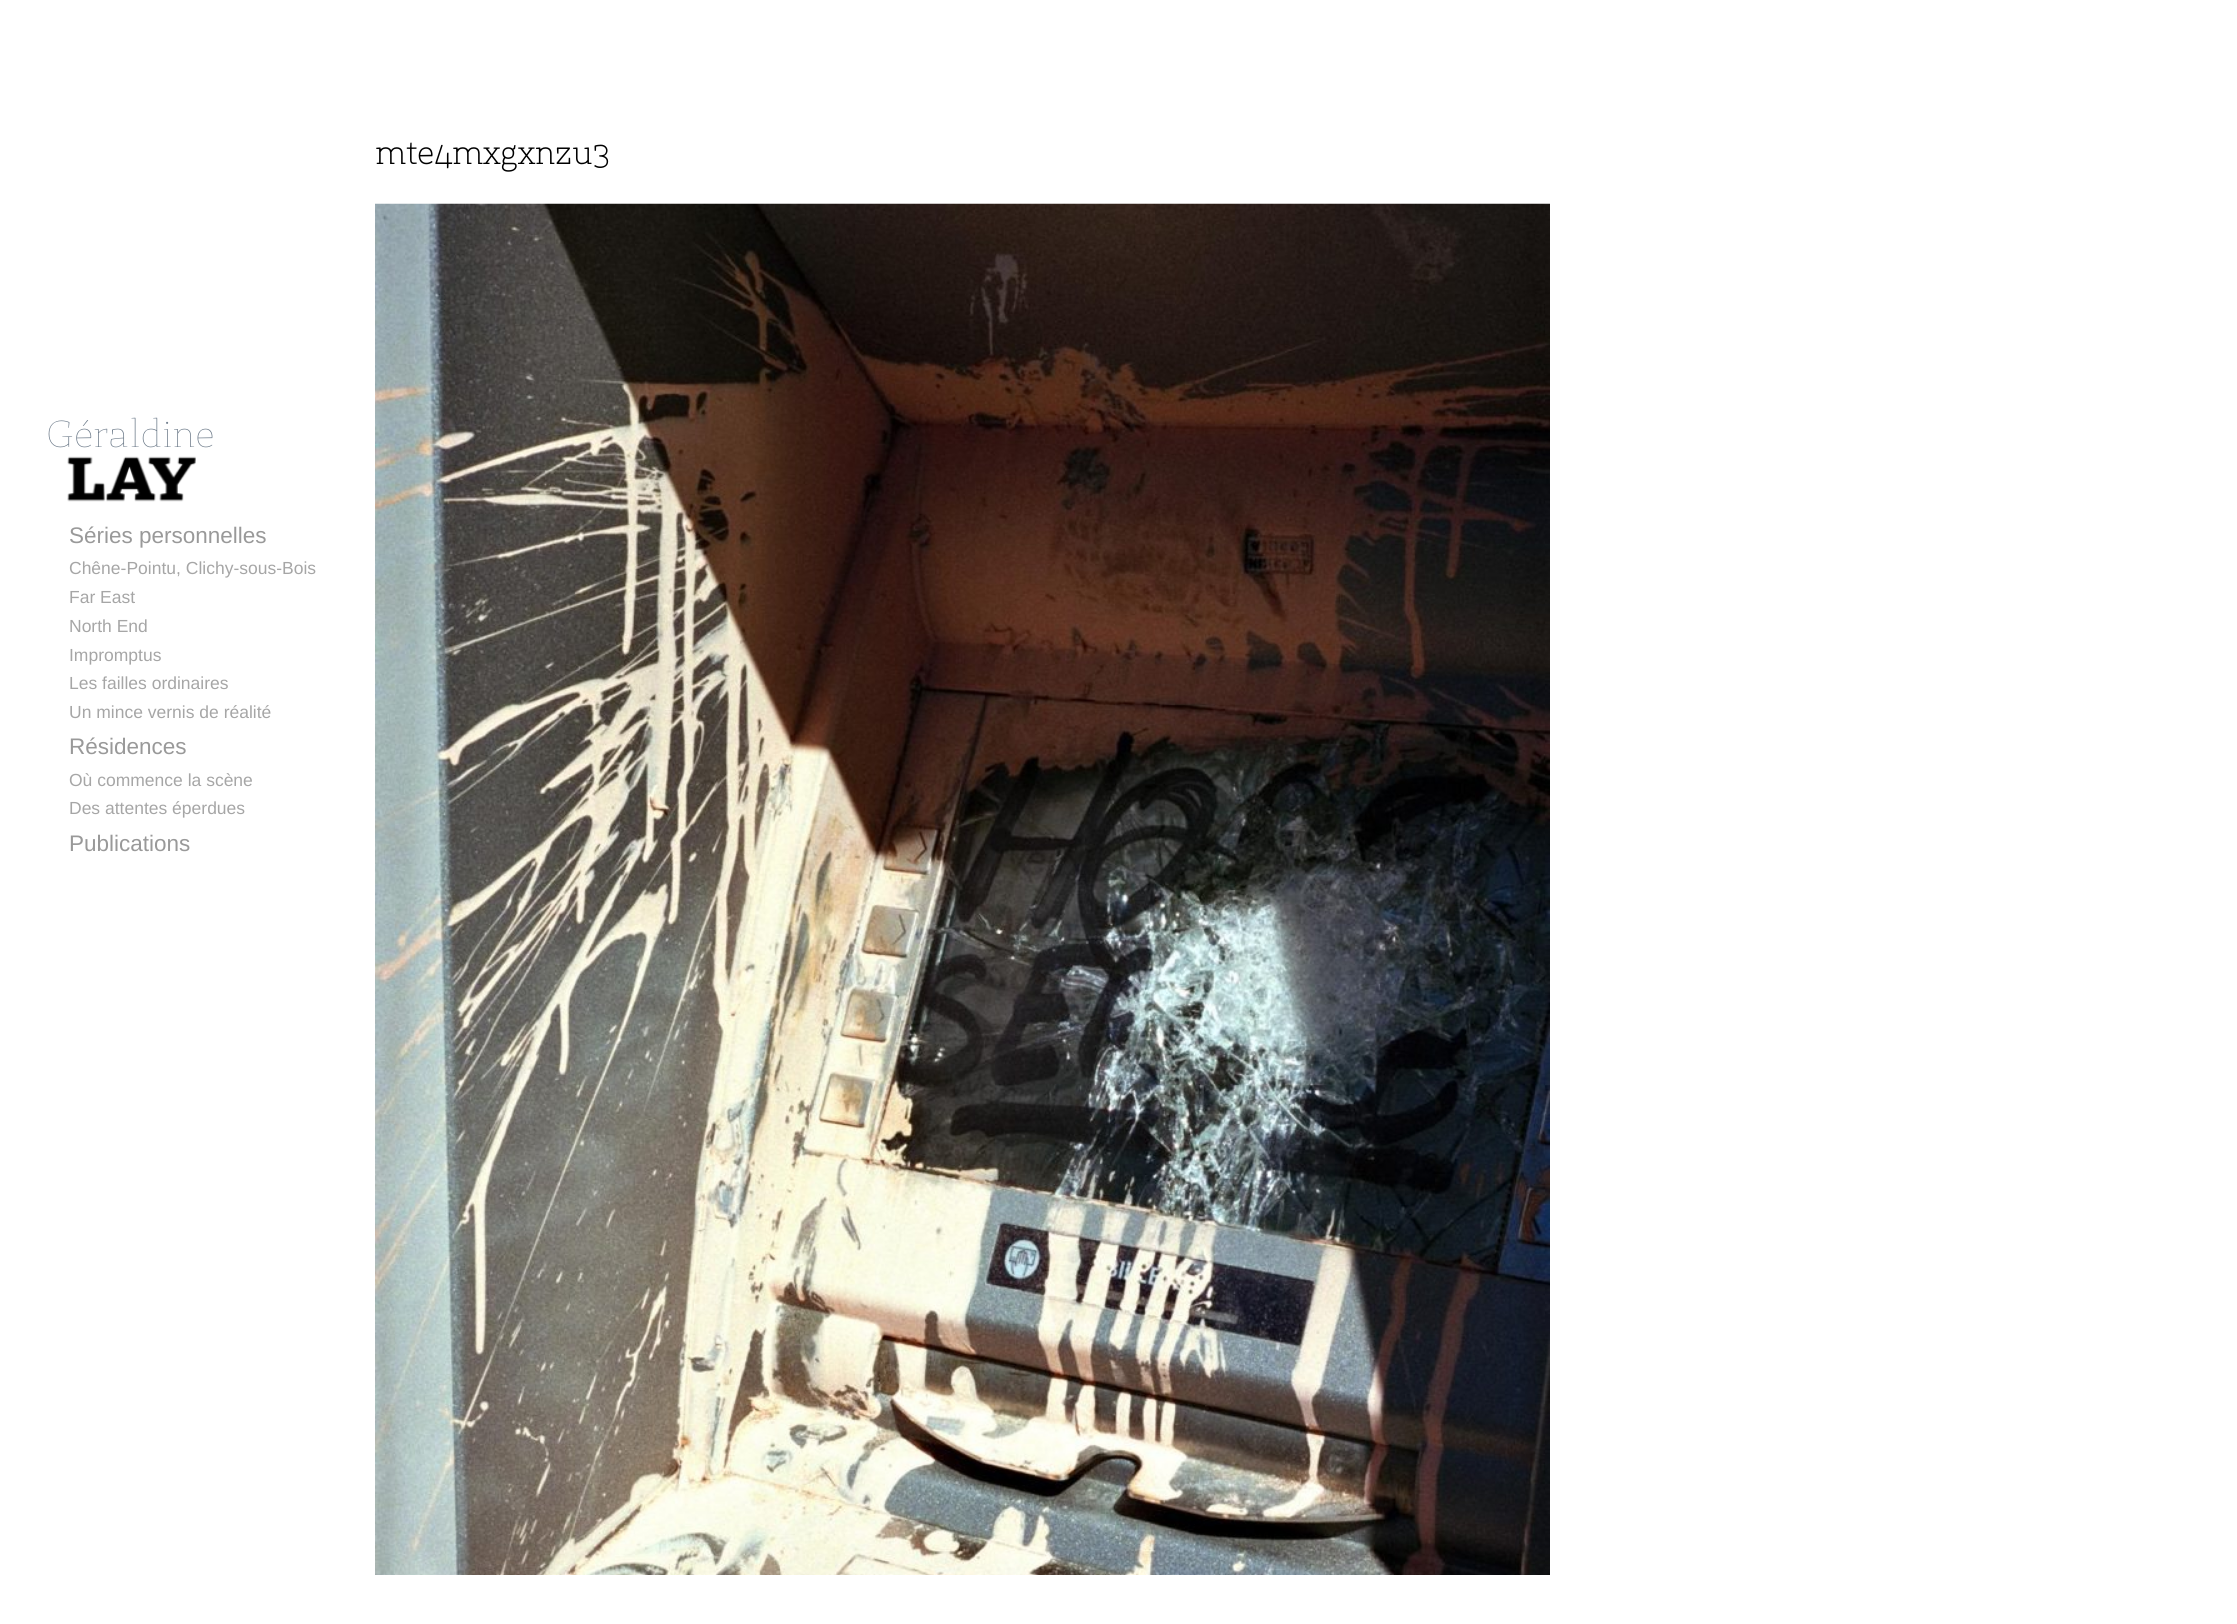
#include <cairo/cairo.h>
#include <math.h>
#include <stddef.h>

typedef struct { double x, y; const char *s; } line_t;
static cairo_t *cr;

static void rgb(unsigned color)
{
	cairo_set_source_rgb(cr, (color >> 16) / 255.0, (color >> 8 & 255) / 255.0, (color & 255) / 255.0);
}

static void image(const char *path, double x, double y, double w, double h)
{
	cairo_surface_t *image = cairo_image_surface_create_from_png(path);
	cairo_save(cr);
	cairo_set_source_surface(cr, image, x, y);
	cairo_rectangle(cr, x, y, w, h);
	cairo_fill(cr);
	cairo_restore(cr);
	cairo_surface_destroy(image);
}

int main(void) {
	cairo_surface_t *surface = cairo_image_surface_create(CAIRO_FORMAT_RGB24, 2237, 1624);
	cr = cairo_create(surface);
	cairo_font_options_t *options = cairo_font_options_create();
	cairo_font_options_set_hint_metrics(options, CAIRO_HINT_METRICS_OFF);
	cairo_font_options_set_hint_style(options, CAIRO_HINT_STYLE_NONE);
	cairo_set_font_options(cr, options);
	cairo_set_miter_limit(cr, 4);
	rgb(0xffffff);
	cairo_paint(cr);
	image("img/1.png", 375, 203, 1175, 1372);
	image("img/2.png", 67, 456, 129, 46);
	cairo_select_font_face(cr, "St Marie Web", CAIRO_FONT_SLANT_NORMAL, CAIRO_FONT_WEIGHT_BOLD);
	cairo_set_font_size(cr, 32.5);
	rgb(0x000000);
	cairo_move_to(cr, 375, 164);
	cairo_show_text(cr, "mte4mxgxnzu3");
	cairo_select_font_face(cr, "St Marie Web Thin", CAIRO_FONT_SLANT_NORMAL, CAIRO_FONT_WEIGHT_NORMAL);
	cairo_set_font_size(cr, 37.5);
	rgb(0x6b7988);
	cairo_move_to(cr, 46, 447);
	cairo_show_text(cr, "Géraldine");
	cairo_select_font_face(cr, "Liberation Sans", CAIRO_FONT_SLANT_NORMAL, CAIRO_FONT_WEIGHT_NORMAL);
	cairo_set_font_size(cr, 22.5);
	rgb(0x999999);
	cairo_move_to(cr, 69, 543);
	cairo_show_text(cr, "Séries personnelles");
	cairo_set_font_size(cr, 17.5);
	rgb(0xa6a6a6);
	{
		static const line_t items[] = {
			{69, 574, "Chêne-Pointu, Clichy-sous-Bois"},
			{69, 603, "Far East"},
			{69, 632, "North End"},
			{69, 661, "Impromptus"},
			{69, 689, "Les failles ordinaires"},
			{69, 718, "Un mince vernis de réalité"},
		};
		for (size_t i = 0; i < sizeof items / sizeof *items; i++) {
			cairo_move_to(cr, items[i].x, items[i].y);
			cairo_show_text(cr, items[i].s);
		}
	}
	cairo_set_font_size(cr, 22.5);
	rgb(0x999999);
	cairo_move_to(cr, 69, 754);
	cairo_show_text(cr, "Résidences");
	cairo_set_font_size(cr, 17.5);
	rgb(0xa6a6a6);
	cairo_move_to(cr, 69, 786);
	cairo_show_text(cr, "Où commence la scène");
	cairo_move_to(cr, 69, 814);
	cairo_show_text(cr, "Des attentes éperdues");
	cairo_set_font_size(cr, 22.5);
	rgb(0x999999);
	cairo_move_to(cr, 69, 851);
	cairo_show_text(cr, "Publications");
	cairo_surface_write_to_png(surface, "page.png");
	cairo_font_options_destroy(options);
	cairo_destroy(cr);
	cairo_surface_destroy(surface);
	return 0;
}
